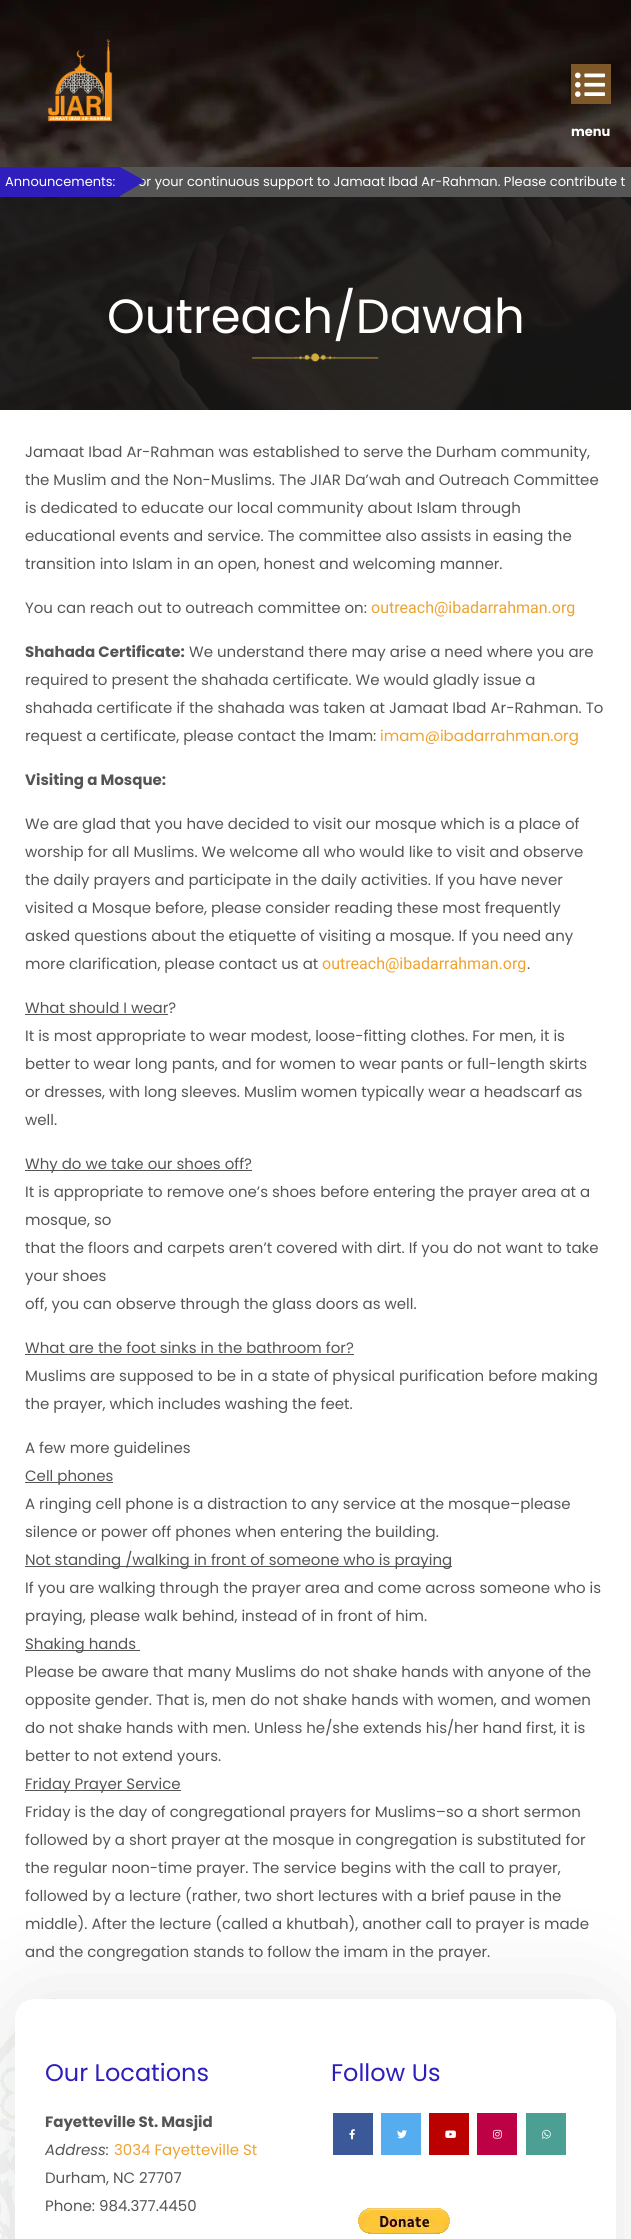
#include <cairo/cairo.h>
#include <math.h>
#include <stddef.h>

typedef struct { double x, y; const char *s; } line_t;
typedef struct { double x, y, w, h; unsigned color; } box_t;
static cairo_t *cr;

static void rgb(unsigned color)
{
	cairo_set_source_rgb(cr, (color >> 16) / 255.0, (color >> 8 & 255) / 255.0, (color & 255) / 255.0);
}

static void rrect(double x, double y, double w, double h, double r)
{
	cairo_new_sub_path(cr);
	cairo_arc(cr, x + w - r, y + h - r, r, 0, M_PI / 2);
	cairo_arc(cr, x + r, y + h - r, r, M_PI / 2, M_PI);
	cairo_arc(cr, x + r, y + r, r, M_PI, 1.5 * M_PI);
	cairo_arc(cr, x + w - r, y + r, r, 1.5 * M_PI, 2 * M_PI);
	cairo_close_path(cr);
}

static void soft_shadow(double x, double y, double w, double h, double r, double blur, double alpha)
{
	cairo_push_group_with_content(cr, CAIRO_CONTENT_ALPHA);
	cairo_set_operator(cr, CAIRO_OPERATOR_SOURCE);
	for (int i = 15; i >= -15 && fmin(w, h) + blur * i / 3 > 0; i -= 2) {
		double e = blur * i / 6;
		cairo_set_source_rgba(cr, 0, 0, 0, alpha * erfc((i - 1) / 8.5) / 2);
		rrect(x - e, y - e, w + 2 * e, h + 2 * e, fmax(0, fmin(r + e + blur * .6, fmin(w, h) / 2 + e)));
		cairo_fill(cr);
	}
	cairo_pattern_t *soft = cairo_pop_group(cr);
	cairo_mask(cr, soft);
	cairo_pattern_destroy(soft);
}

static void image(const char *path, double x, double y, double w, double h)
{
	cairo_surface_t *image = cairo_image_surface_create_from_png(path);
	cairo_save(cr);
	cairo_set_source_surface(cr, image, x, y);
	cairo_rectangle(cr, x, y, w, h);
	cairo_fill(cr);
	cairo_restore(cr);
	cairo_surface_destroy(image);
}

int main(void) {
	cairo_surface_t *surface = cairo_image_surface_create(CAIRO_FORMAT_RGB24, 631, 2239);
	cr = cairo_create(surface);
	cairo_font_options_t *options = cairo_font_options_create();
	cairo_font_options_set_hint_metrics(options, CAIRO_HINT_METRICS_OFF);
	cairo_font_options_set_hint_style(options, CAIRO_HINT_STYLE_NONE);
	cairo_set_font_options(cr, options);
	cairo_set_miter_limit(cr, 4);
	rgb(0xffffff);
	cairo_paint(cr);
	image("img/1.png", 0, 0, 631, 167);
	image("img/2.png", 47, 39, 66, 83);
	rgb(0x7f582a);
	cairo_rectangle(cr, 571, 64, 40, 40);
	cairo_fill(cr);
	image("img/3.png", 575, 72, 30, 25);
	rgb(0x565656);
	cairo_rectangle(cr, 120, 167, 511, 30);
	cairo_fill(cr);
	rgb(0x2e1ebc);
	cairo_rectangle(cr, 0, 167, 120, 30);
	cairo_fill(cr);
	image("img/4.png", 0, 197, 631, 213);
	image("img/5.png", 252, 353, 127, 9);
	{
		static const box_t items[] = {
			{25, 1014, 143, 1, 0x555555},
			{25, 1170, 227, 1, 0x555555},
			{25, 1354, 329, 1, 0x555555},
			{25, 1482, 88, 1, 0x555555},
			{25, 1566, 427, 1, 0x555555},
			{25, 1650, 115, 1, 0x555555},
			{25, 1790, 156, 1, 0x555555},
		};
		for (size_t i = 0; i < sizeof items / sizeof *items; i++) {
			rgb(items[i].color);
			cairo_rectangle(cr, items[i].x, items[i].y, items[i].w, items[i].h);
			cairo_fill(cr);
		}
	}
	image("img/6.png", 0, 1998, 57, 241);
	rgb(0x000000);
	soft_shadow(15, 1999, 601, 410, 20, 50, 0.1);
	rgb(0xffffff);
	rrect(15, 1999, 601, 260, 20);
	cairo_fill(cr);
	rgb(0x3b5998);
	cairo_rectangle(cr, 333, 2113, 40, 42);
	cairo_fill(cr);
	image("img/7.png", 349, 2129, 6, 11);
	rgb(0x55acee);
	cairo_rectangle(cr, 381, 2113, 40, 42);
	cairo_fill(cr);
	image("img/8.png", 397, 2130, 10, 9);
	rgb(0xbb0000);
	cairo_rectangle(cr, 429, 2113, 40, 42);
	cairo_fill(cr);
	image("img/9.png", 445, 2130, 11, 8);
	rgb(0xbe0044);
	cairo_rectangle(cr, 477, 2113, 40, 42);
	cairo_fill(cr);
	image("img/10.png", 493, 2129, 9, 10);
	rgb(0x4c9f93);
	cairo_rectangle(cr, 526, 2113, 40, 42);
	cairo_fill(cr);
	image("img/11.png", 542, 2129, 9, 10);
	image("img/12.png", 358, 2208, 92, 26);
	cairo_select_font_face(cr, "Poppins", CAIRO_FONT_SLANT_NORMAL, CAIRO_FONT_WEIGHT_BOLD);
	cairo_set_font_size(cr, 13);
	rgb(0xffffff);
	cairo_move_to(cr, 571, 136);
	cairo_show_text(cr, "menu");
	cairo_select_font_face(cr, "Poppins", CAIRO_FONT_SLANT_NORMAL, CAIRO_FONT_WEIGHT_NORMAL);
	cairo_move_to(cr, 5, 186);
	cairo_show_text(cr, "Announcements:");
	cairo_move_to(cr, 138, 186);
	cairo_show_text(cr, "or your continuous support to Jamaat Ibad Ar-Rahman. Please contribute t");
	rgb(0x2e1ebc);
	cairo_new_path(cr);
	cairo_move_to(cr, 120, 196);
	cairo_line_to(cr, 120, 167);
	cairo_line_to(cr, 145, 181);
	cairo_close_path(cr);
	cairo_fill(cr);
	cairo_set_font_size(cr, 48);
	rgb(0xffffff);
	cairo_move_to(cr, 107, 333);
	cairo_show_text(cr, "Outreach/Dawah");
	cairo_set_font_size(cr, 15);
	rgb(0x555555);
	{
		static const line_t items[] = {
			{25, 457, "Jamaat Ibad Ar-Rahman was established to serve the Durham community,"},
			{25, 485, "the Muslim and the Non-Muslims. The JIAR Da’wah and Outreach Committee"},
			{25, 513, "is dedicated to educate our local community about Islam through"},
			{25, 541, "educational events and service. The committee also assists in easing the"},
			{25, 569, "transition into Islam in an open, honest and welcoming manner."},
			{25, 613, "You can reach out to outreach committee on:"},
		};
		for (size_t i = 0; i < sizeof items / sizeof *items; i++) {
			cairo_move_to(cr, items[i].x, items[i].y);
			cairo_show_text(cr, items[i].s);
		}
	}
	cairo_select_font_face(cr, "Roboto", CAIRO_FONT_SLANT_NORMAL, CAIRO_FONT_WEIGHT_NORMAL);
	cairo_set_font_size(cr, 16);
	rgb(0xefa22f);
	cairo_move_to(cr, 371, 613);
	cairo_show_text(cr, "outreach@ibadarrahman.org");
	cairo_select_font_face(cr, "Poppins", CAIRO_FONT_SLANT_NORMAL, CAIRO_FONT_WEIGHT_BOLD);
	cairo_set_font_size(cr, 15);
	rgb(0x555555);
	cairo_move_to(cr, 25, 657);
	cairo_show_text(cr, "Shahada Certificate:");
	cairo_select_font_face(cr, "Poppins", CAIRO_FONT_SLANT_NORMAL, CAIRO_FONT_WEIGHT_NORMAL);
	{
		static const line_t items[] = {
			{189, 657, "We understand there may arise a need where you are"},
			{25, 685, "required to present the shahada certificate. We would gladly issue a"},
			{25, 713, "shahada certificate if the shahada was taken at Jamaat Ibad Ar-Rahman. To"},
			{25, 741, "request a certificate, please contact the Imam:"},
		};
		for (size_t i = 0; i < sizeof items / sizeof *items; i++) {
			cairo_move_to(cr, items[i].x, items[i].y);
			cairo_show_text(cr, items[i].s);
		}
	}
	rgb(0xefa22f);
	cairo_move_to(cr, 380, 741);
	cairo_show_text(cr, "imam@ibadarrahman.org");
	cairo_select_font_face(cr, "Poppins", CAIRO_FONT_SLANT_NORMAL, CAIRO_FONT_WEIGHT_BOLD);
	rgb(0x555555);
	cairo_move_to(cr, 25, 785);
	cairo_show_text(cr, "Visiting a Mosque:");
	cairo_select_font_face(cr, "Poppins", CAIRO_FONT_SLANT_NORMAL, CAIRO_FONT_WEIGHT_NORMAL);
	{
		static const line_t items[] = {
			{25, 829, "We are glad that you have decided to visit our mosque which is a place of"},
			{25, 857, "worship for all Muslims. We welcome all who would like to visit and observe"},
			{25, 885, "the daily prayers and participate in the daily activities. If you have never"},
			{25, 913, "visited a Mosque before, please consider reading these most frequently"},
			{25, 941, "asked questions about the etiquette of visiting a mosque. If you need any"},
			{25, 969, "more clarification, please contact us at"},
		};
		for (size_t i = 0; i < sizeof items / sizeof *items; i++) {
			cairo_move_to(cr, items[i].x, items[i].y);
			cairo_show_text(cr, items[i].s);
		}
	}
	cairo_select_font_face(cr, "Roboto", CAIRO_FONT_SLANT_NORMAL, CAIRO_FONT_WEIGHT_NORMAL);
	cairo_set_font_size(cr, 16);
	rgb(0xefa22f);
	cairo_move_to(cr, 322, 969);
	cairo_show_text(cr, "outreach@ibadarrahman.org");
	cairo_select_font_face(cr, "Poppins", CAIRO_FONT_SLANT_NORMAL, CAIRO_FONT_WEIGHT_NORMAL);
	cairo_set_font_size(cr, 15);
	rgb(0x555555);
	{
		static const line_t items[] = {
			{527, 969, "."},
			{25, 1013, "What should I wear?"},
			{25, 1041, "It is most appropriate to wear modest, loose-fitting clothes. For men, it is"},
			{25, 1069, "better to wear long pants, and for women to wear pants or full-length skirts"},
			{25, 1097, "or dresses, with long sleeves. Muslim women typically wear a headscarf as"},
			{25, 1125, "well."},
			{25, 1169, "Why do we take our shoes off?"},
			{25, 1197, "It is appropriate to remove one’s shoes before entering the prayer area at a"},
			{25, 1225, "mosque, so"},
			{25, 1253, "that the floors and carpets aren’t covered with dirt. If you do not want to take"},
			{25, 1281, "your shoes"},
			{25, 1309, "off, you can observe through the glass doors as well."},
			{25, 1353, "What are the foot sinks in the bathroom for?"},
			{25, 1381, "Muslims are supposed to be in a state of physical purification before making"},
			{25, 1409, "the prayer, which includes washing the feet."},
			{25, 1453, "A few more guidelines"},
			{25, 1481, "Cell phones"},
			{25, 1509, "A ringing cell phone is a distraction to any service at the mosque–please"},
			{25, 1537, "silence or power off phones when entering the building."},
			{25, 1565, "Not standing /walking in front of someone who is praying"},
			{25, 1593, "If you are walking through the prayer area and come across someone who is"},
			{25, 1621, "praying, please walk behind, instead of in front of him."},
			{25, 1649, "Shaking hands"},
			{25, 1677, "Please be aware that many Muslims do not shake hands with anyone of the"},
			{25, 1705, "opposite gender. That is, men do not shake hands with women, and women"},
			{25, 1733, "do not shake hands with men. Unless he/she extends his/her hand first, it is"},
			{25, 1761, "better to not extend yours."},
			{25, 1789, "Friday Prayer Service"},
			{25, 1817, "Friday is the day of congregational prayers for Muslims–so a short sermon"},
			{25, 1845, "followed by a short prayer at the mosque in congregation is substituted for"},
			{25, 1873, "the regular noon-time prayer. The service begins with the call to prayer,"},
			{25, 1901, "followed by a lecture (rather, two short lectures with a brief pause in the"},
			{25, 1929, "middle). After the lecture (called a khutbah), another call to prayer is made"},
			{25, 1957, "and the congregation stands to follow the imam in the prayer."},
		};
		for (size_t i = 0; i < sizeof items / sizeof *items; i++) {
			cairo_move_to(cr, items[i].x, items[i].y);
			cairo_show_text(cr, items[i].s);
		}
	}
	cairo_set_font_size(cr, 24);
	rgb(0x2e1ebc);
	cairo_move_to(cr, 45, 2081);
	cairo_show_text(cr, "Our Locations");
	cairo_select_font_face(cr, "Poppins", CAIRO_FONT_SLANT_NORMAL, CAIRO_FONT_WEIGHT_BOLD);
	cairo_set_font_size(cr, 15);
	rgb(0x555555);
	cairo_move_to(cr, 45, 2127);
	cairo_show_text(cr, "Fayetteville St. Masjid");
	cairo_select_font_face(cr, "Poppins", CAIRO_FONT_SLANT_ITALIC, CAIRO_FONT_WEIGHT_NORMAL);
	cairo_move_to(cr, 45, 2155);
	cairo_show_text(cr, "Address:");
	cairo_select_font_face(cr, "Poppins", CAIRO_FONT_SLANT_NORMAL, CAIRO_FONT_WEIGHT_NORMAL);
	rgb(0xefa22f);
	cairo_move_to(cr, 114, 2155);
	cairo_show_text(cr, "3034 Fayetteville St");
	rgb(0x555555);
	cairo_move_to(cr, 45, 2183);
	cairo_show_text(cr, "Durham, NC 27707");
	cairo_move_to(cr, 45, 2211);
	cairo_show_text(cr, "Phone: 984.377.4450");
	cairo_set_font_size(cr, 24);
	rgb(0x2e1ebc);
	cairo_move_to(cr, 331, 2081);
	cairo_show_text(cr, "Follow Us");
	cairo_surface_write_to_png(surface, "page.png");
	cairo_font_options_destroy(options);
	cairo_destroy(cr);
	cairo_surface_destroy(surface);
	return 0;
}
